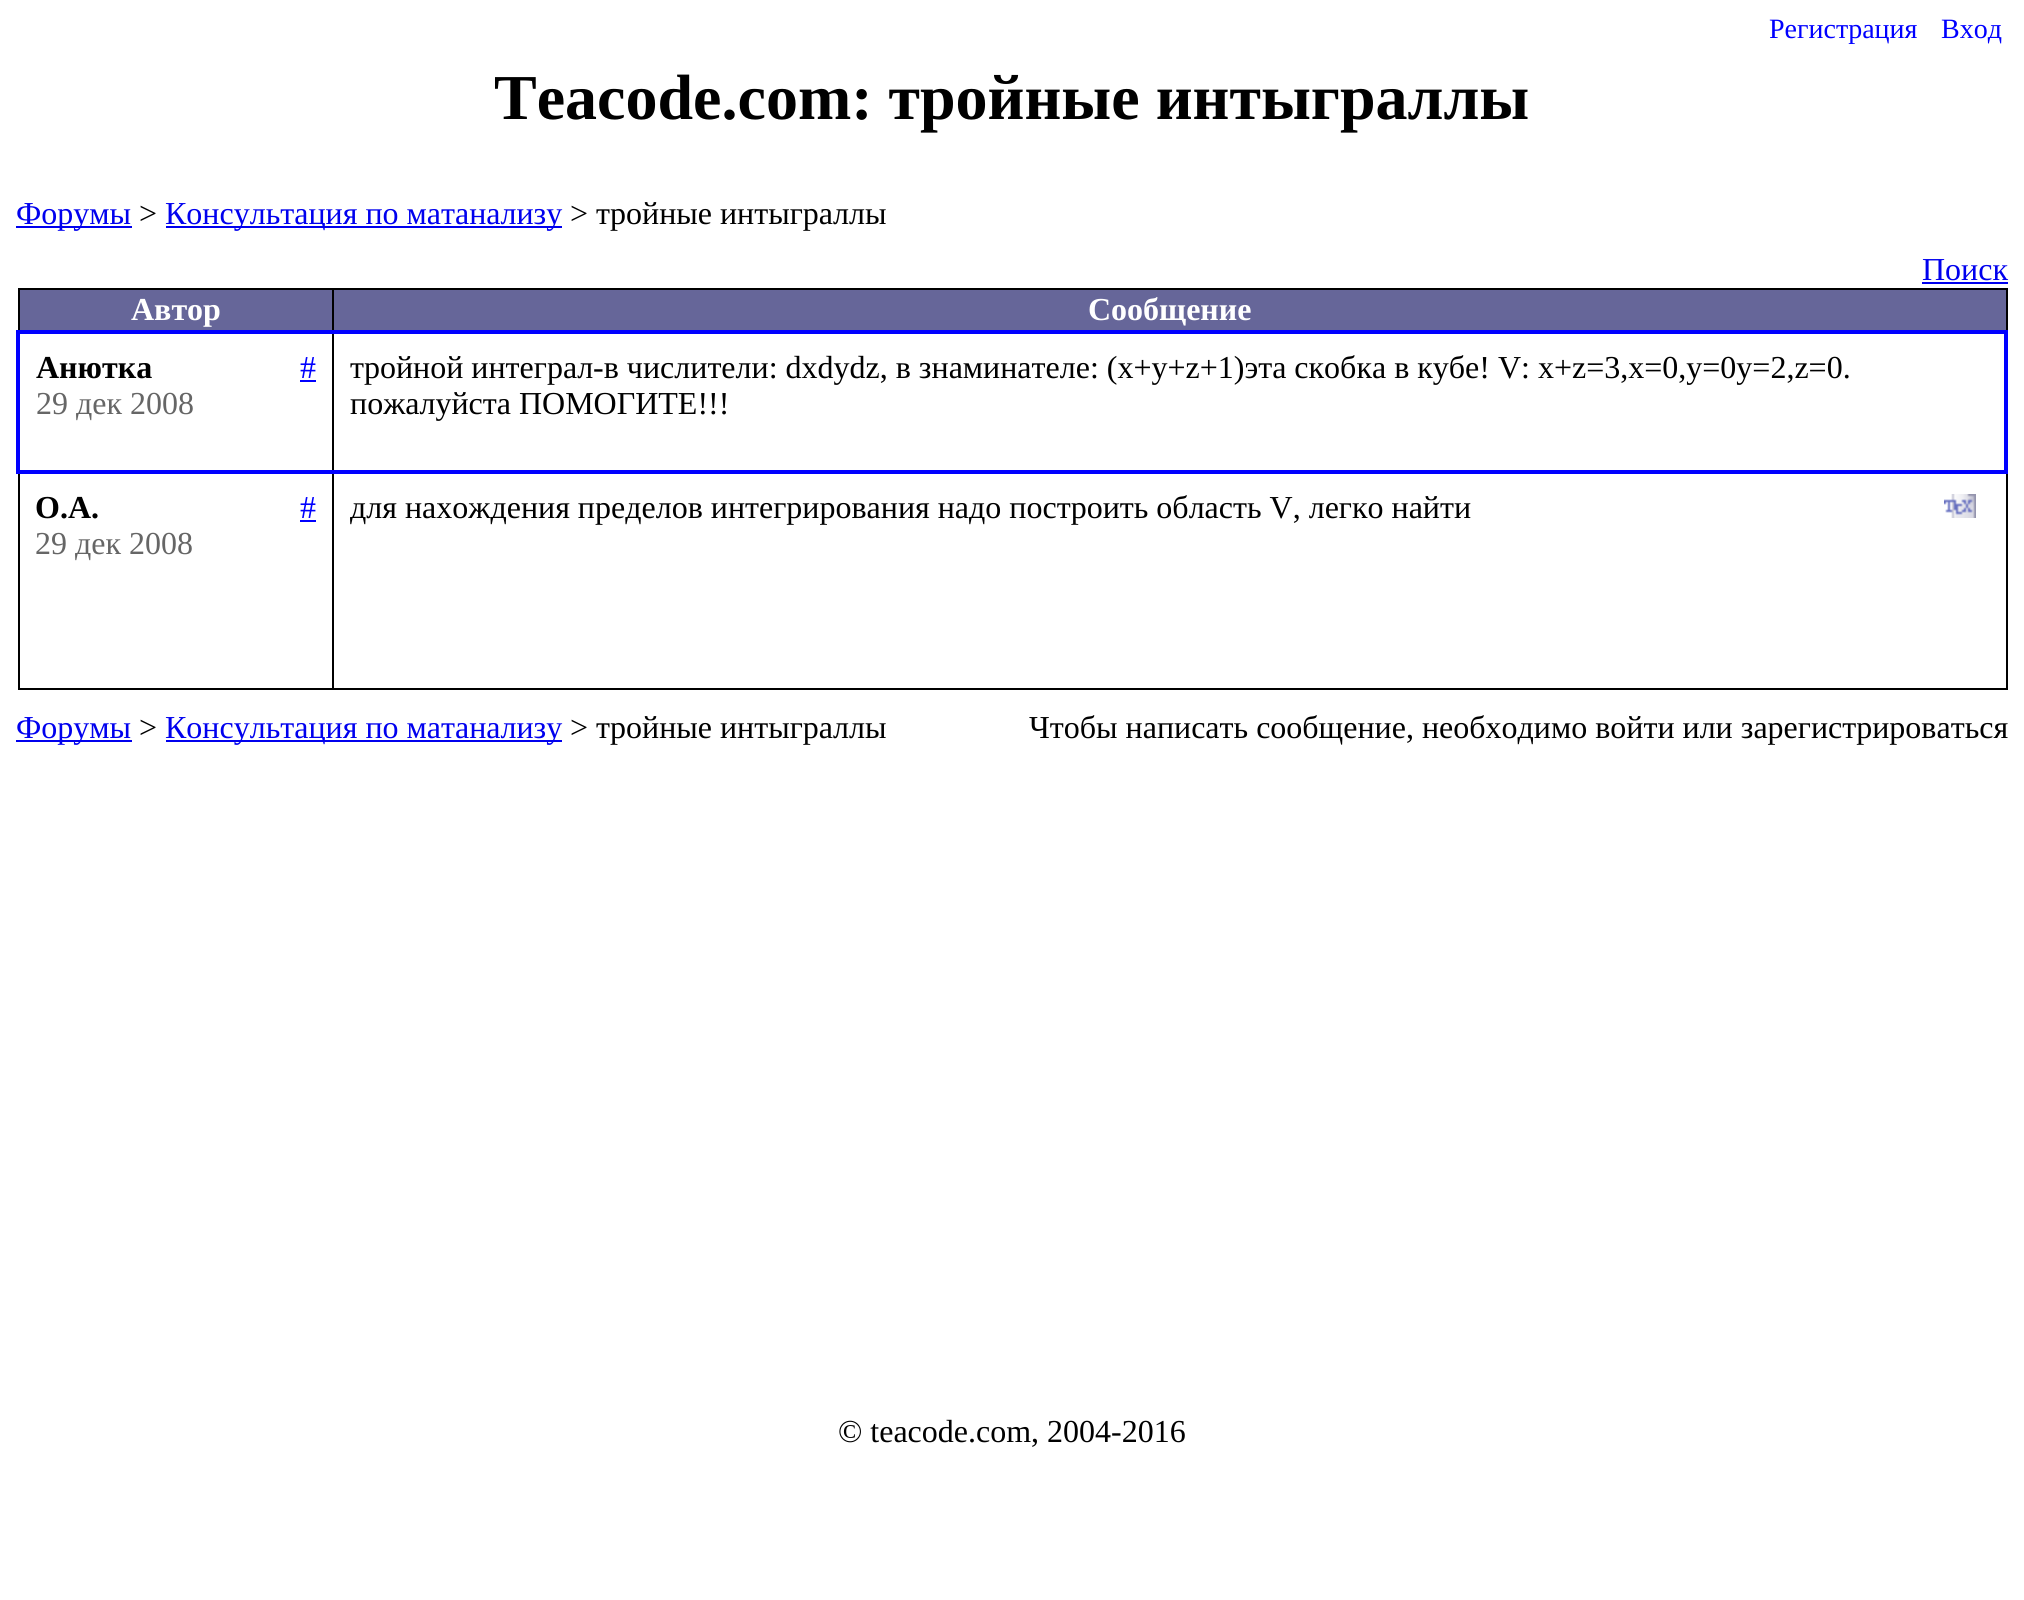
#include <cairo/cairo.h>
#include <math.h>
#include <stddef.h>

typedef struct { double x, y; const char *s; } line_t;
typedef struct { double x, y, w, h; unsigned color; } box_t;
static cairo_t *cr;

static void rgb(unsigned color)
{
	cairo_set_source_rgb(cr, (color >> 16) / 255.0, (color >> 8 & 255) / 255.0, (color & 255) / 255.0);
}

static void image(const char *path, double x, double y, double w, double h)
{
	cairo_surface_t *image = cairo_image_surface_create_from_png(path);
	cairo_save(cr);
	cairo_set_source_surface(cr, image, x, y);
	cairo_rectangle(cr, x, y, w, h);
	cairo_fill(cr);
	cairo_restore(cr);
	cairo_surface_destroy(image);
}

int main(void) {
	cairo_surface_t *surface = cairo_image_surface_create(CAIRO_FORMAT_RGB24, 2024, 1600);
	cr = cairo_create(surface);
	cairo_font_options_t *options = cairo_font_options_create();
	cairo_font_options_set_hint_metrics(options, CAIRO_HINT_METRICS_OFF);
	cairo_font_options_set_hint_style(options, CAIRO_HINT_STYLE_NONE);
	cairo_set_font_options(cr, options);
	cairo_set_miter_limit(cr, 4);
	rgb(0xffffff);
	cairo_paint(cr);
	{
		static const box_t items[] = {
			{16, 226, 116, 2, 0x0000ee},
			{166, 226, 396, 2, 0x0000ee},
			{1922, 282, 86, 2, 0x0000ee},
			{20, 290, 1986, 40, 0x666699},
			{332, 288, 1676, 2, 0x000000},
			{2006, 470, 2, 220, 0x000000},
			{332, 688, 1676, 2, 0x000000},
			{332, 330, 2, 360, 0x000000},
			{332, 288, 2, 44, 0x000000},
			{18, 288, 316, 2, 0x000000},
			{18, 288, 2, 44, 0x000000},
			{2006, 288, 2, 44, 0x000000},
			{16, 330, 1992, 4, 0x0000ff},
			{2004, 330, 4, 144, 0x0000ff},
			{18, 688, 316, 2, 0x000000},
			{18, 470, 2, 220, 0x000000},
			{16, 470, 1992, 4, 0x0000ff},
			{16, 330, 4, 144, 0x0000ff},
			{300, 380, 16, 2, 0x0000ff},
			{300, 520, 16, 2, 0x0000ff},
		};
		for (size_t i = 0; i < sizeof items / sizeof *items; i++) {
			rgb(items[i].color);
			cairo_rectangle(cr, items[i].x, items[i].y, items[i].w, items[i].h);
			cairo_fill(cr);
		}
	}
	image("img/1.png", 1944, 494, 32, 24);
	rgb(0x0000ee);
	cairo_rectangle(cr, 16, 740, 116, 2);
	cairo_fill(cr);
	cairo_rectangle(cr, 166, 740, 396, 2);
	cairo_fill(cr);
	cairo_select_font_face(cr, "Liberation Serif", CAIRO_FONT_SLANT_NORMAL, CAIRO_FONT_WEIGHT_NORMAL);
	cairo_set_font_size(cr, 28);
	rgb(0x0000ff);
	cairo_move_to(cr, 1769, 38);
	cairo_show_text(cr, "Регистрация");
	cairo_move_to(cr, 1941, 38);
	cairo_show_text(cr, "Вход");
	cairo_select_font_face(cr, "Liberation Serif", CAIRO_FONT_SLANT_NORMAL, CAIRO_FONT_WEIGHT_BOLD);
	cairo_set_font_size(cr, 64);
	rgb(0x000000);
	cairo_move_to(cr, 494, 119);
	cairo_show_text(cr, "Teacode.com: тройные интыграллы");
	cairo_select_font_face(cr, "Liberation Serif", CAIRO_FONT_SLANT_NORMAL, CAIRO_FONT_WEIGHT_NORMAL);
	cairo_set_font_size(cr, 32);
	rgb(0x0000ee);
	cairo_move_to(cr, 16, 224);
	cairo_show_text(cr, "Форумы");
	rgb(0x000000);
	cairo_move_to(cr, 139, 224);
	cairo_show_text(cr, ">");
	rgb(0x0000ee);
	cairo_move_to(cr, 165, 224);
	cairo_show_text(cr, "Консультация по матанализу");
	rgb(0x000000);
	cairo_move_to(cr, 570, 224);
	cairo_show_text(cr, "> тройные интыграллы");
	rgb(0x0000ee);
	cairo_move_to(cr, 1922, 280);
	cairo_show_text(cr, "Поиск");
	cairo_select_font_face(cr, "Liberation Serif", CAIRO_FONT_SLANT_NORMAL, CAIRO_FONT_WEIGHT_BOLD);
	rgb(0xffffff);
	cairo_move_to(cr, 131, 320);
	cairo_show_text(cr, "Автор");
	cairo_move_to(cr, 1088, 320);
	cairo_show_text(cr, "Сообщение");
	rgb(0x000000);
	cairo_move_to(cr, 36, 378);
	cairo_show_text(cr, "Анютка");
	cairo_select_font_face(cr, "Liberation Serif", CAIRO_FONT_SLANT_NORMAL, CAIRO_FONT_WEIGHT_NORMAL);
	rgb(0x0000ff);
	cairo_move_to(cr, 300, 378);
	cairo_show_text(cr, "#");
	rgb(0x666666);
	cairo_move_to(cr, 36, 414);
	cairo_show_text(cr, "29 дек 2008");
	rgb(0x000000);
	cairo_move_to(cr, 350, 378);
	cairo_show_text(cr, "тройной интеграл-в числители: dxdydz, в знаминателе: (x+y+z+1)эта скобка в кубе! V: x+z=3,x=0,y=0y=2,z=0.");
	cairo_move_to(cr, 350, 414);
	cairo_show_text(cr, "пожалуйста ПОМОГИТЕ!!!");
	cairo_select_font_face(cr, "Liberation Serif", CAIRO_FONT_SLANT_NORMAL, CAIRO_FONT_WEIGHT_BOLD);
	cairo_move_to(cr, 35, 518);
	cairo_show_text(cr, "О.А.");
	cairo_select_font_face(cr, "Liberation Serif", CAIRO_FONT_SLANT_NORMAL, CAIRO_FONT_WEIGHT_NORMAL);
	rgb(0x0000ff);
	cairo_move_to(cr, 300, 518);
	cairo_show_text(cr, "#");
	rgb(0x666666);
	cairo_move_to(cr, 35, 554);
	cairo_show_text(cr, "29 дек 2008");
	rgb(0x000000);
	cairo_move_to(cr, 350, 518);
	cairo_show_text(cr, "для нахождения пределов интегрирования надо построить область V, легко найти");
	rgb(0x0000ee);
	cairo_move_to(cr, 16, 738);
	cairo_show_text(cr, "Форумы");
	rgb(0x000000);
	cairo_move_to(cr, 139, 738);
	cairo_show_text(cr, ">");
	rgb(0x0000ee);
	cairo_move_to(cr, 165, 738);
	cairo_show_text(cr, "Консультация по матанализу");
	rgb(0x000000);
	{
		static const line_t items[] = {
			{570, 738, "> тройные интыграллы"},
			{1029, 738, "Чтобы написать сообщение, необходимо войти или зарегистрироваться"},
			{838, 1442, "© teacode.com, 2004-2016"},
		};
		for (size_t i = 0; i < sizeof items / sizeof *items; i++) {
			cairo_move_to(cr, items[i].x, items[i].y);
			cairo_show_text(cr, items[i].s);
		}
	}
	cairo_surface_write_to_png(surface, "page.png");
	cairo_font_options_destroy(options);
	cairo_destroy(cr);
	cairo_surface_destroy(surface);
	return 0;
}
